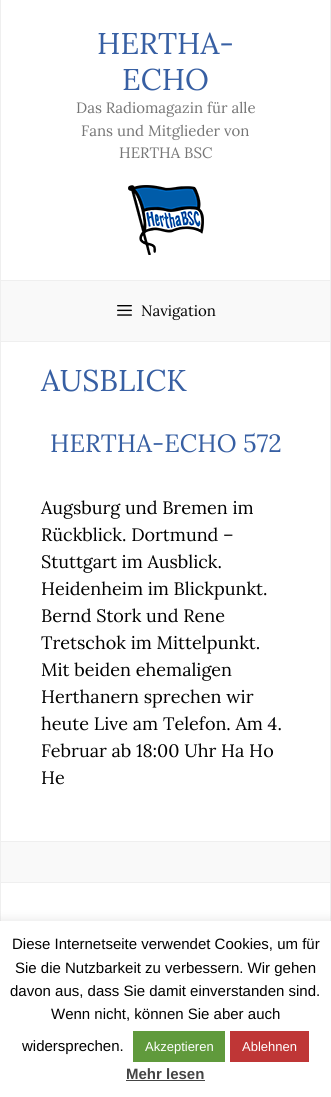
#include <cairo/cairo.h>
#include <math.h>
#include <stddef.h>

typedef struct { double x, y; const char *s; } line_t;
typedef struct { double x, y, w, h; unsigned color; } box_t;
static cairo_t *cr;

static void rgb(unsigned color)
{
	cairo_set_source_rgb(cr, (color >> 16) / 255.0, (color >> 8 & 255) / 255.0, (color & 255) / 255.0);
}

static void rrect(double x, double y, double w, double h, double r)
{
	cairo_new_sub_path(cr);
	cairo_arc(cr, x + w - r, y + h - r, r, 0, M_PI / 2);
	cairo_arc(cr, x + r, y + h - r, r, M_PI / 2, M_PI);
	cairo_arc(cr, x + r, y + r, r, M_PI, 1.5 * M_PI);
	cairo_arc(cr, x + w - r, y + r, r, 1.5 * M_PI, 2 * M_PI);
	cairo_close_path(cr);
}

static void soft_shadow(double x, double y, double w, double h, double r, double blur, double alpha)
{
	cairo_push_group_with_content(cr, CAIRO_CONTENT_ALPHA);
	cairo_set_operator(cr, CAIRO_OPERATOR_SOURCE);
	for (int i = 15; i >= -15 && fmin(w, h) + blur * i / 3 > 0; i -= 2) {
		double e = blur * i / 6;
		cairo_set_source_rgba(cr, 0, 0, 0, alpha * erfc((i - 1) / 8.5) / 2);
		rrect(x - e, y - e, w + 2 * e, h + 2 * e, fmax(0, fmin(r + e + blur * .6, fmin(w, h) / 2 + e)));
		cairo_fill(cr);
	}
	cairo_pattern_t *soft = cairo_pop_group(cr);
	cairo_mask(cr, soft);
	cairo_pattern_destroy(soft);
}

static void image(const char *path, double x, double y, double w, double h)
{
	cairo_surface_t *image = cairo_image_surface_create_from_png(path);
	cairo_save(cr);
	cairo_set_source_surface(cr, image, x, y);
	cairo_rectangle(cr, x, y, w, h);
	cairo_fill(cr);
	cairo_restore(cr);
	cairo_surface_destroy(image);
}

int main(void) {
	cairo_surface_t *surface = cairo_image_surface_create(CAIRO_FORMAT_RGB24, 331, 1097);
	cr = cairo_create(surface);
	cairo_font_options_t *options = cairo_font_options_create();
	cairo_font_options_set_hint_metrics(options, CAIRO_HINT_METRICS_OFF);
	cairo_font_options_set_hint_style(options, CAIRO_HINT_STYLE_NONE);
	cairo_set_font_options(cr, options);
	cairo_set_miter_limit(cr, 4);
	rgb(0xefefef);
	cairo_paint(cr);
	rgb(0xffffff);
	cairo_rectangle(cr, 1, 0, 329, 280);
	cairo_fill(cr);
	image("img/1.png", 128, 185, 76, 70);
	rgb(0xf9f9f9);
	cairo_rectangle(cr, 1, 281, 329, 60);
	cairo_fill(cr);
	image("img/2.png", 117, 305, 15, 11);
	{
		static const box_t items[] = {
			{1, 342, 329, 499, 0xffffff},
			{1, 842, 329, 40, 0xf9f9f9},
			{1, 883, 329, 38, 0xffffff},
		};
		for (size_t i = 0; i < sizeof items / sizeof *items; i++) {
			rgb(items[i].color);
			cairo_rectangle(cr, items[i].x, items[i].y, items[i].w, items[i].h);
			cairo_fill(cr);
		}
	}
	rgb(0xacabab);
	soft_shadow(0, 920, 331, 176, 0, 5, 0.3);
	{
		static const box_t items[] = {
			{0, 921, 331, 176, 0xffffff},
			{133, 1031, 92, 31, 0x609a3c},
			{230, 1031, 79, 31, 0xbf3636},
			{126, 1080, 79, 1, 0x444444},
		};
		for (size_t i = 0; i < sizeof items / sizeof *items; i++) {
			rgb(items[i].color);
			cairo_rectangle(cr, items[i].x, items[i].y, items[i].w, items[i].h);
			cairo_fill(cr);
		}
	}
	cairo_select_font_face(cr, "Lora", CAIRO_FONT_SLANT_NORMAL, CAIRO_FONT_WEIGHT_NORMAL);
	cairo_set_font_size(cr, 30);
	rgb(0x375fa3);
	cairo_move_to(cr, 97, 54);
	cairo_show_text(cr, "HERTHA-");
	cairo_move_to(cr, 122, 90);
	cairo_show_text(cr, "ECHO");
	cairo_set_font_size(cr, 15);
	rgb(0x757575);
	{
		static const line_t items[] = {
			{76, 113, "Das Radiomagazin für alle"},
			{81, 136, "Fans und Mitglieder von"},
			{119, 158, "HERTHA BSC"},
		};
		for (size_t i = 0; i < sizeof items / sizeof *items; i++) {
			cairo_move_to(cr, items[i].x, items[i].y);
			cairo_show_text(cr, items[i].s);
		}
	}
	rgb(0x000000);
	cairo_move_to(cr, 141, 316);
	cairo_show_text(cr, "Navigation");
	cairo_set_font_size(cr, 30);
	rgb(0x375fa3);
	cairo_move_to(cr, 41, 391);
	cairo_show_text(cr, "AUSBLICK");
	cairo_set_font_size(cr, 25);
	cairo_move_to(cr, 50, 452);
	cairo_show_text(cr, "HERTHA-ECHO 572");
	cairo_set_font_size(cr, 18);
	rgb(0x000000);
	{
		static const line_t items[] = {
			{41, 514, "Augsburg und Bremen im"},
			{41, 541, "Rückblick. Dortmund –"},
			{41, 568, "Stuttgart im Ausblick."},
			{41, 595, "Heidenheim im Blickpunkt."},
			{41, 622, "Bernd Stork und Rene"},
			{41, 649, "Tretschok im Mittelpunkt."},
			{41, 676, "Mit beiden ehemaligen"},
			{41, 703, "Herthanern sprechen wir"},
			{41, 730, "heute Live am Telefon. Am 4."},
			{41, 757, "Februar ab 18:00 Uhr Ha Ho"},
			{41, 784, "He"},
		};
		for (size_t i = 0; i < sizeof items / sizeof *items; i++) {
			cairo_move_to(cr, items[i].x, items[i].y);
			cairo_show_text(cr, items[i].s);
		}
	}
	cairo_select_font_face(cr, "Liberation Sans", CAIRO_FONT_SLANT_NORMAL, CAIRO_FONT_WEIGHT_NORMAL);
	cairo_set_font_size(cr, 15);
	{
		static const line_t items[] = {
			{12, 949, "Diese Internetseite verwendet Cookies, um für"},
			{15, 973, "Sie die Nutzbarkeit zu verbessern. Wir gehen"},
			{10, 996, "davon aus, dass Sie damit einverstanden sind."},
			{51, 1019, "Wenn nicht, können Sie aber auch"},
			{22, 1051, "widersprechen."},
		};
		for (size_t i = 0; i < sizeof items / sizeof *items; i++) {
			cairo_move_to(cr, items[i].x, items[i].y);
			cairo_show_text(cr, items[i].s);
		}
	}
	cairo_set_font_size(cr, 13);
	rgb(0xffffff);
	cairo_move_to(cr, 145, 1051);
	cairo_show_text(cr, "Akzeptieren");
	cairo_move_to(cr, 242, 1051);
	cairo_show_text(cr, "Ablehnen");
	cairo_select_font_face(cr, "Liberation Sans", CAIRO_FONT_SLANT_NORMAL, CAIRO_FONT_WEIGHT_BOLD);
	cairo_set_font_size(cr, 15);
	rgb(0x444444);
	cairo_move_to(cr, 126, 1079);
	cairo_show_text(cr, "Mehr lesen");
	cairo_surface_write_to_png(surface, "page.png");
	cairo_font_options_destroy(options);
	cairo_destroy(cr);
	cairo_surface_destroy(surface);
	return 0;
}
